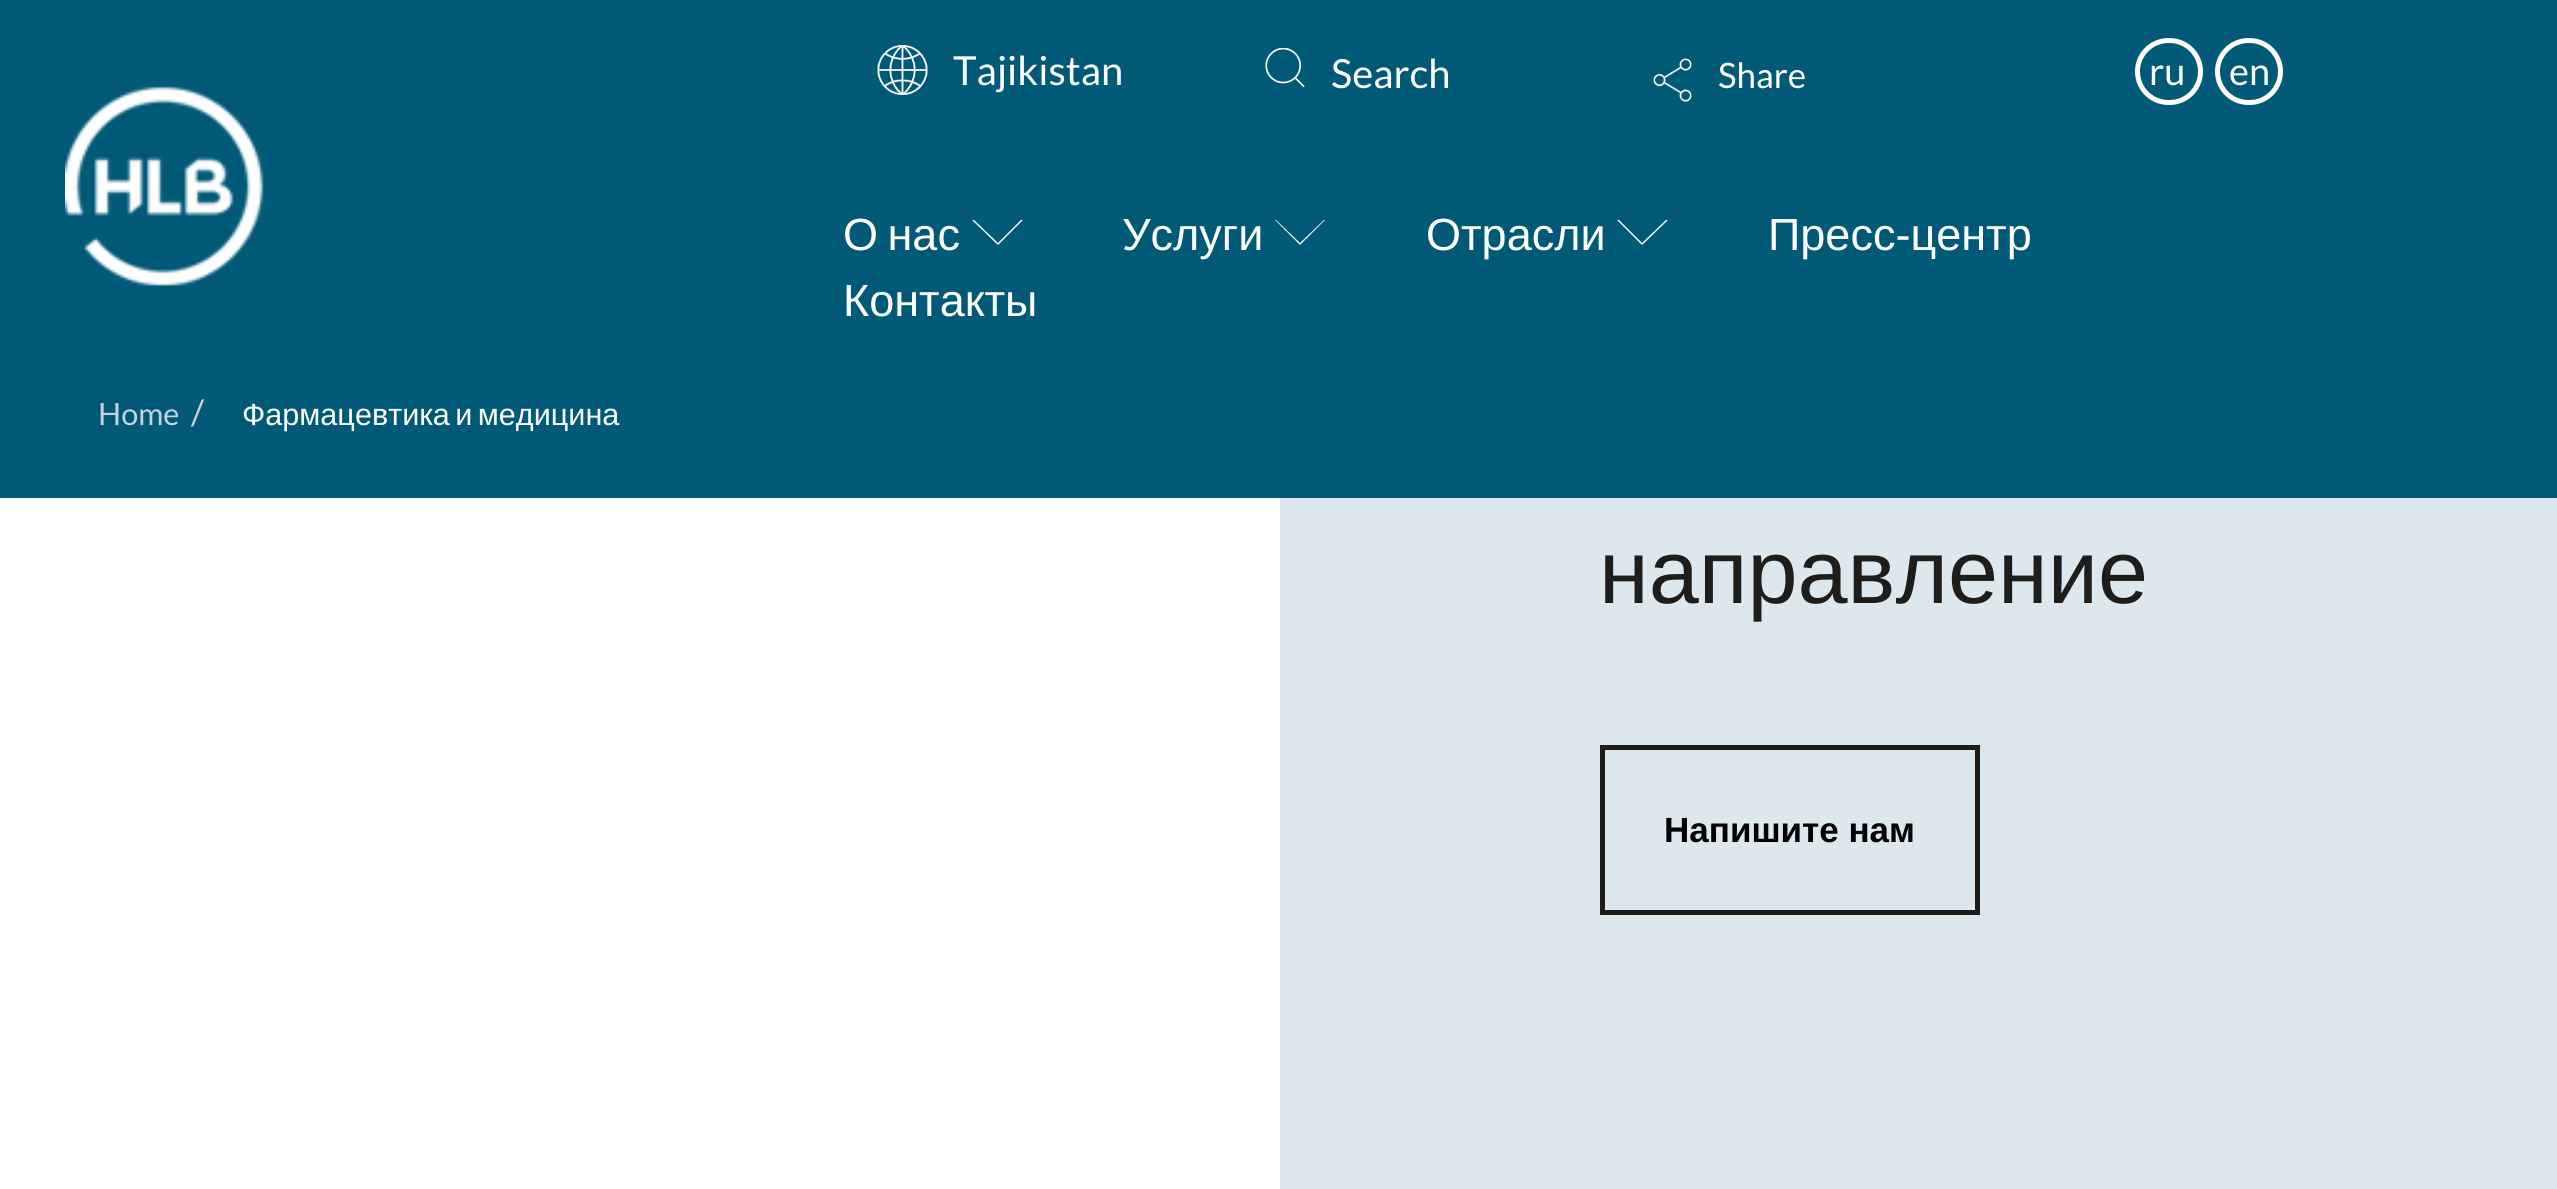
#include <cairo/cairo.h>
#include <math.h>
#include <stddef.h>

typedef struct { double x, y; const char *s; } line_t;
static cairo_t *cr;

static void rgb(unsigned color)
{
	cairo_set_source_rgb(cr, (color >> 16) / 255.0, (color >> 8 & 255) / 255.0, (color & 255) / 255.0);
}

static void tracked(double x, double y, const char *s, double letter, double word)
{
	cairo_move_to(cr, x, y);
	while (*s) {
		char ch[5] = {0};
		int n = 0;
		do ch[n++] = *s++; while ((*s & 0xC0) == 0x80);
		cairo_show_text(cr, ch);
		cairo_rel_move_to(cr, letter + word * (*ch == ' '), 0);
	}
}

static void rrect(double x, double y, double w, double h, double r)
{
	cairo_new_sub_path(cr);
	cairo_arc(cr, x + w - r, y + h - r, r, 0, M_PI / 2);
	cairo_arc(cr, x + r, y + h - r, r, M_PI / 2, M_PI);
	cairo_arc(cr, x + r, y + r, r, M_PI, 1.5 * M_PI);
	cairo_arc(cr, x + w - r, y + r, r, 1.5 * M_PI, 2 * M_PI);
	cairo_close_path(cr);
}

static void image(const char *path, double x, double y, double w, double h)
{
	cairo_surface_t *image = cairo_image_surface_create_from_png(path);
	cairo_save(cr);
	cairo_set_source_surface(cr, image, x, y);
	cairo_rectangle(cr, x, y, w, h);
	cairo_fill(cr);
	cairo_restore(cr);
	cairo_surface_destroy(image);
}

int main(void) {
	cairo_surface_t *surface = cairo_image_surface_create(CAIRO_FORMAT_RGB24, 2557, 1189);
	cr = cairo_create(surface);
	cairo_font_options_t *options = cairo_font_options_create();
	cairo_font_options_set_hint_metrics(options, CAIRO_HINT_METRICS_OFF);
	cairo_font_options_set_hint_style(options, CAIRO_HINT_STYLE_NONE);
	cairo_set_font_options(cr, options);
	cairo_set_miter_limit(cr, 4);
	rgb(0xffffff);
	cairo_paint(cr);
	rgb(0x005a77);
	cairo_rectangle(cr, 0, 0, 2557, 498);
	cairo_fill(cr);
	image("img/1.png", 65, 86, 199, 200);
	image("img/2.png", 877, 45, 51, 50);
	image("img/3.png", 1265, 48, 40, 40);
	image("img/4.png", 1653, 58, 39, 45);
	rrect(2137.5, 40.5, 63, 62, 31);
	rgb(0xffffff);
	cairo_set_line_width(cr, 5);
	cairo_stroke(cr);
	rrect(2217.5, 40.5, 63, 62, 31);
	cairo_stroke(cr);
	cairo_new_path(cr);
	cairo_move_to(cr, 998, 245);
	cairo_line_to(cr, 973, 221);
	cairo_curve_to(cr, 972, 221, 973, 219, 974, 220);
	cairo_line_to(cr, 998, 243);
	cairo_line_to(cr, 1021, 220);
	cairo_curve_to(cr, 1022, 219, 1023, 221, 1022, 221);
	cairo_close_path(cr);
	cairo_fill(cr);
	cairo_new_path(cr);
	cairo_move_to(cr, 1300, 245);
	cairo_line_to(cr, 1276, 221);
	cairo_curve_to(cr, 1275, 221, 1275, 219, 1276, 220);
	cairo_line_to(cr, 1300, 243);
	cairo_line_to(cr, 1324, 220);
	cairo_curve_to(cr, 1325, 219, 1325, 221, 1324, 221);
	cairo_close_path(cr);
	cairo_fill(cr);
	cairo_new_path(cr);
	cairo_move_to(cr, 1642, 245);
	cairo_line_to(cr, 1618, 221);
	cairo_curve_to(cr, 1617, 221, 1618, 219, 1619, 220);
	cairo_line_to(cr, 1642, 243);
	cairo_line_to(cr, 1666, 220);
	cairo_curve_to(cr, 1667, 219, 1668, 221, 1667, 221);
	cairo_close_path(cr);
	cairo_fill(cr);
	rgb(0xdce8ed);
	cairo_rectangle(cr, 1280, 498, 1277, 691);
	cairo_fill(cr);
	cairo_rectangle(cr, 1602.5, 747.5, 375, 165);
	rgb(0x1d1d1b);
	cairo_stroke(cr);
	cairo_select_font_face(cr, "Lato", CAIRO_FONT_SLANT_NORMAL, CAIRO_FONT_WEIGHT_NORMAL);
	cairo_set_font_size(cr, 40);
	rgb(0xffffff);
	cairo_move_to(cr, 953, 85);
	cairo_show_text(cr, "Tajikistan");
	cairo_move_to(cr, 1331, 88);
	cairo_show_text(cr, "Search");
	cairo_set_font_size(cr, 35);
	cairo_move_to(cr, 1718, 88);
	cairo_show_text(cr, "Share");
	cairo_set_font_size(cr, 38);
	cairo_move_to(cr, 2149, 85);
	cairo_show_text(cr, "ru");
	cairo_move_to(cr, 2229, 85);
	cairo_show_text(cr, "en");
	cairo_select_font_face(cr, "Liberation Sans", CAIRO_FONT_SLANT_NORMAL, CAIRO_FONT_WEIGHT_NORMAL);
	cairo_set_font_size(cr, 45);
	tracked(843, 250, "О нас", 0, -3);
	{
		static const line_t items[] = {
			{1122, 250, "Услуги"},
			{1426, 250, "Отрасли"},
			{1768, 250, "Пресс-центр"},
			{843, 316, "Контакты"},
		};
		for (size_t i = 0; i < sizeof items / sizeof *items; i++) {
			cairo_move_to(cr, items[i].x, items[i].y);
			cairo_show_text(cr, items[i].s);
		}
	}
	cairo_select_font_face(cr, "Lato", CAIRO_FONT_SLANT_NORMAL, CAIRO_FONT_WEIGHT_NORMAL);
	cairo_set_font_size(cr, 30.6);
	rgb(0xc8d3d9);
	cairo_move_to(cr, 98, 425);
	cairo_show_text(cr, "Home");
	cairo_set_font_size(cr, 35);
	cairo_move_to(cr, 191, 425);
	cairo_show_text(cr, "/");
	cairo_select_font_face(cr, "Liberation Sans", CAIRO_FONT_SLANT_NORMAL, CAIRO_FONT_WEIGHT_NORMAL);
	cairo_set_font_size(cr, 30.6);
	rgb(0xffffff);
	tracked(242, 425, "Фармацевтика и медицина", 0, -3);
	cairo_set_font_size(cr, 90);
	rgb(0x1d1d1b);
	cairo_move_to(cr, 1599, 603);
	cairo_show_text(cr, "направление");
	cairo_select_font_face(cr, "Liberation Sans", CAIRO_FONT_SLANT_NORMAL, CAIRO_FONT_WEIGHT_BOLD);
	cairo_set_font_size(cr, 35);
	rgb(0x000000);
	cairo_move_to(cr, 1664, 842);
	cairo_show_text(cr, "Напишите нам");
	cairo_surface_write_to_png(surface, "page.png");
	cairo_font_options_destroy(options);
	cairo_destroy(cr);
	cairo_surface_destroy(surface);
	return 0;
}
